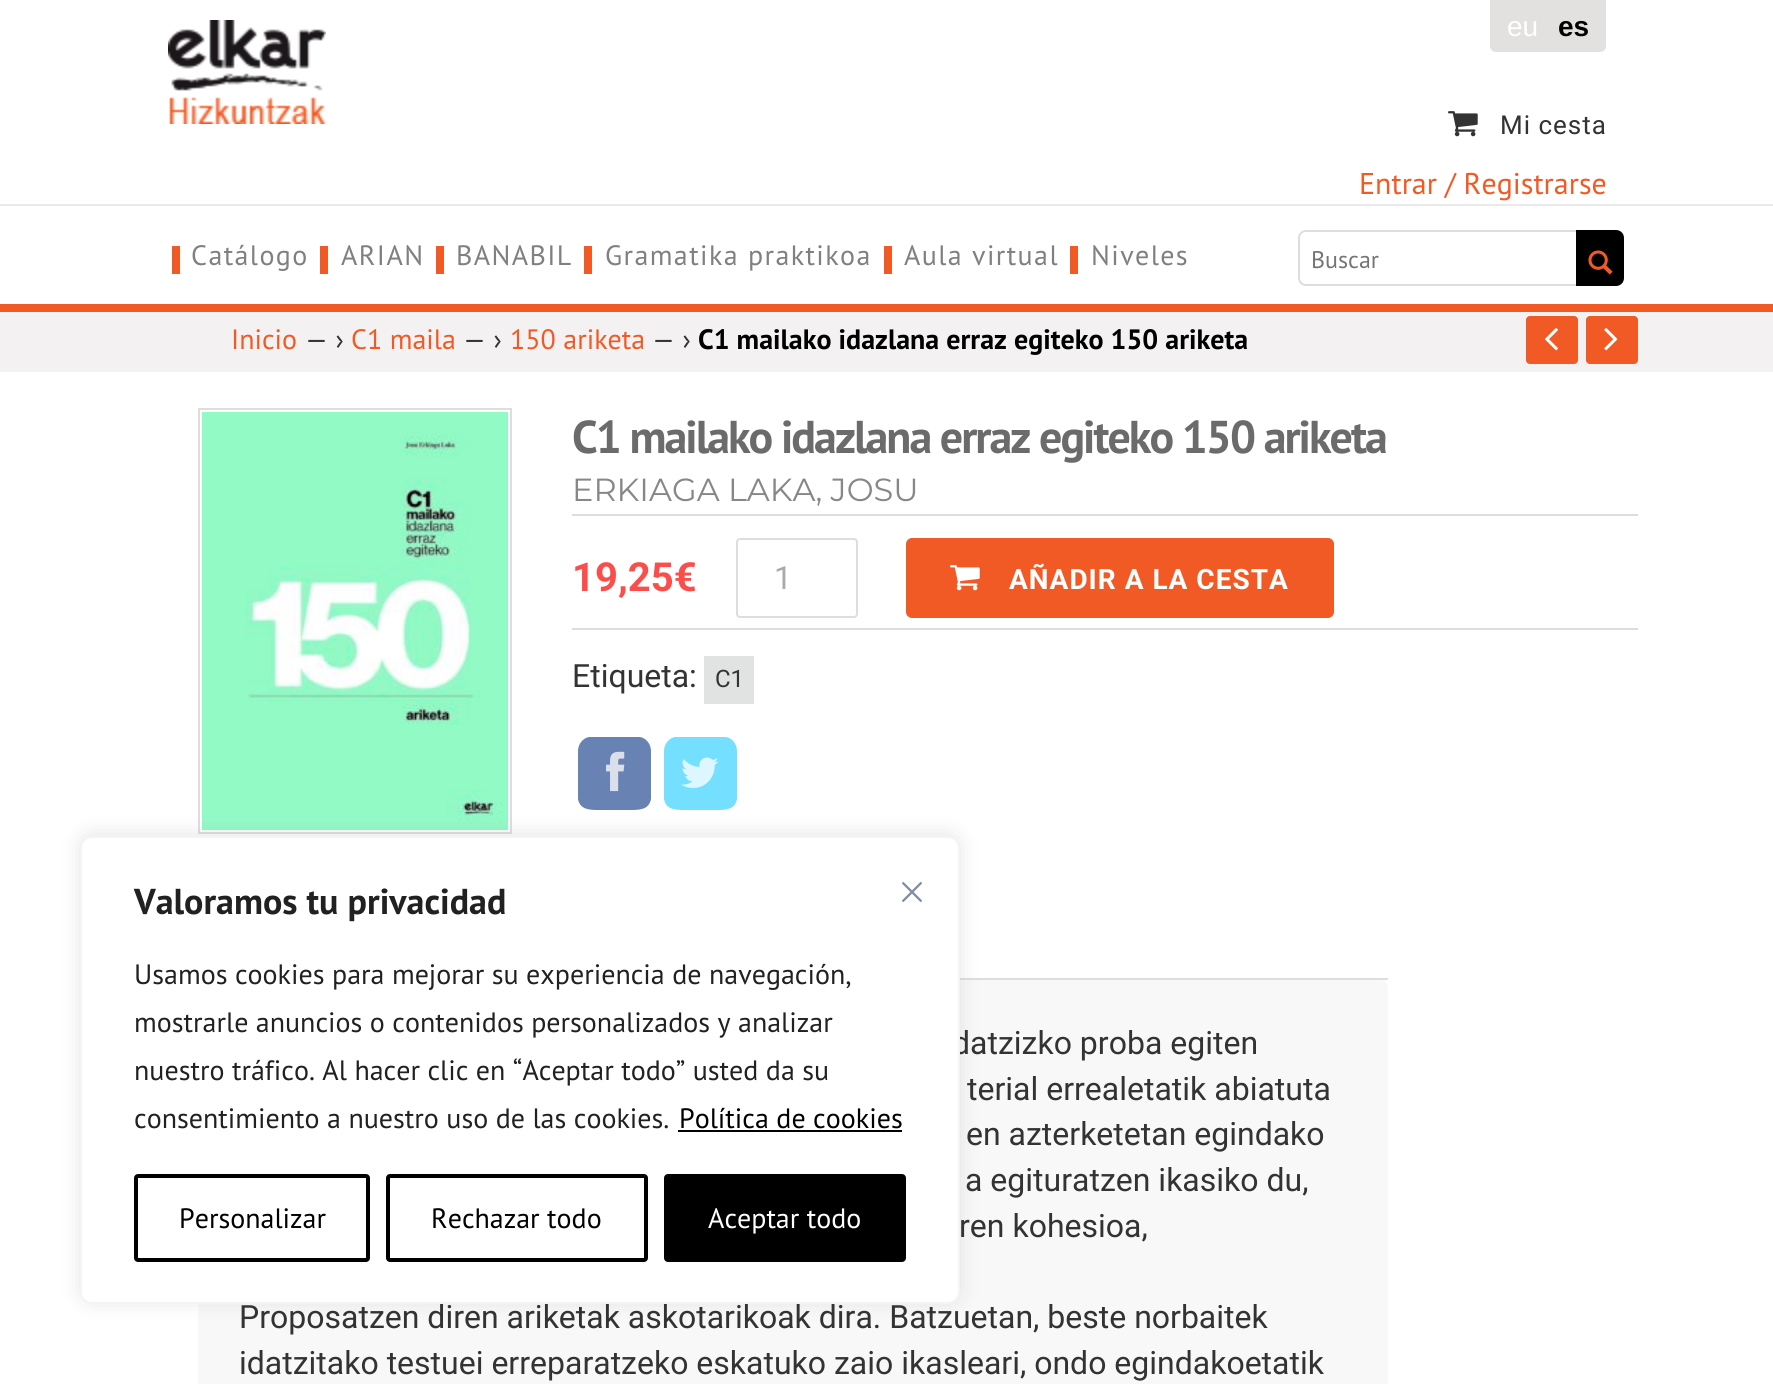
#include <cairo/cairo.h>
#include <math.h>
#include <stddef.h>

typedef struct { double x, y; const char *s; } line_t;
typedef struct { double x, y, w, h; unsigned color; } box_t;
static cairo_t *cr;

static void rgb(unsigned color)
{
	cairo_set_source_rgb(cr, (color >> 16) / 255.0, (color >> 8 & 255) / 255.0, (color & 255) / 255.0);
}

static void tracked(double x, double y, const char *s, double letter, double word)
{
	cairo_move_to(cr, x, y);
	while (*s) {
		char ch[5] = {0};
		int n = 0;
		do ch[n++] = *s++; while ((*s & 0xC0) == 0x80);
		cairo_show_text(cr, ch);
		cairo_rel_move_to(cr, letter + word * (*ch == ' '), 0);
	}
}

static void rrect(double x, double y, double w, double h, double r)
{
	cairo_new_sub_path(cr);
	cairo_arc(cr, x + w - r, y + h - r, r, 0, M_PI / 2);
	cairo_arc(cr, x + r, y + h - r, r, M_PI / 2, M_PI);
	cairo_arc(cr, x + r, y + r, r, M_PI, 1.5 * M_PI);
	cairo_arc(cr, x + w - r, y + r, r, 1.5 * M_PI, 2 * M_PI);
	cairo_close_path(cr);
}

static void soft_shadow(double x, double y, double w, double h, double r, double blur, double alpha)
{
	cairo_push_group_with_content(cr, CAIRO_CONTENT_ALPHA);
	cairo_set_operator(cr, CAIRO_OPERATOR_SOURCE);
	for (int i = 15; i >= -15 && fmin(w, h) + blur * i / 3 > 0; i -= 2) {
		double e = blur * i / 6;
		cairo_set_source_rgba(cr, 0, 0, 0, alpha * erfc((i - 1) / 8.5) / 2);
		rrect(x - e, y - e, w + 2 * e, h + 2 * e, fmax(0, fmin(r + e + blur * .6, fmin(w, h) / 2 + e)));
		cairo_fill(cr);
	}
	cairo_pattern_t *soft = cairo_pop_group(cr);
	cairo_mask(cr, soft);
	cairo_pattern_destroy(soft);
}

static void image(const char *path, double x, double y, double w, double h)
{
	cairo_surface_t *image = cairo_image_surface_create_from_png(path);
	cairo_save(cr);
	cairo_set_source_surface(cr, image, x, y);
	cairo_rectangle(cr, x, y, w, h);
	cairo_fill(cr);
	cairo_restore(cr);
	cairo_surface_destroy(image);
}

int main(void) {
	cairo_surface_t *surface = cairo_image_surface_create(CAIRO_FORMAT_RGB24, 1773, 1384);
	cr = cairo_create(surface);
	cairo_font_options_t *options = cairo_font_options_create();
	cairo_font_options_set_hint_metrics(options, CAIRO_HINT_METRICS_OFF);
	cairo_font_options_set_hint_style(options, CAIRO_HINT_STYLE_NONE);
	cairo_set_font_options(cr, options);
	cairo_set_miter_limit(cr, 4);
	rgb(0xffffff);
	cairo_paint(cr);
	rgb(0xeaeaea);
	cairo_rectangle(cr, 0, 204, 1773, 2);
	cairo_fill(cr);
	rgb(0xe3e0e0);
	cairo_new_path(cr);
	cairo_move_to(cr, 1490, 0);
	cairo_line_to(cr, 1606, 0);
	cairo_line_to(cr, 1606, 46);
	cairo_curve_to(cr, 1606, 49.5, 1603.5, 52, 1600, 52);
	cairo_line_to(cr, 1496, 52);
	cairo_curve_to(cr, 1492.5, 52, 1490, 49.5, 1490, 46);
	cairo_close_path(cr);
	cairo_fill(cr);
	image("img/1.png", 168, 20, 158, 104);
	image("img/2.png", 1448, 111, 30, 26);
	{
		static const box_t items[] = {
			{0, 304, 1773, 8, 0xf15a24},
			{172, 246, 8, 28, 0xf15a24},
			{320, 246, 8, 28, 0xf15a24},
			{436, 246, 8, 28, 0xf15a24},
			{584, 246, 8, 28, 0xf15a24},
			{884, 246, 8, 28, 0xf15a24},
			{1070, 246, 8, 28, 0xf15a24},
		};
		for (size_t i = 0; i < sizeof items / sizeof *items; i++) {
			rgb(items[i].color);
			cairo_rectangle(cr, items[i].x, items[i].y, items[i].w, items[i].h);
			cairo_fill(cr);
		}
	}
	rrect(1299, 231, 308, 54, 7);
	rgb(0xdddddd);
	cairo_stroke(cr);
	rgb(0x000000);
	cairo_new_path(cr);
	cairo_move_to(cr, 1576, 230);
	cairo_line_to(cr, 1616, 230);
	cairo_curve_to(cr, 1620.5, 230, 1624, 233.5, 1624, 238);
	cairo_line_to(cr, 1624, 278);
	cairo_curve_to(cr, 1624, 282.5, 1620.5, 286, 1616, 286);
	cairo_line_to(cr, 1576, 286);
	cairo_close_path(cr);
	cairo_fill(cr);
	image("img/3.png", 1588, 250, 25, 25);
	rgb(0xf3f1f1);
	cairo_rectangle(cr, 0, 312, 1773, 60);
	cairo_fill(cr);
	rgb(0xf15a24);
	rrect(1526, 316, 52, 48, 4);
	cairo_fill(cr);
	image("img/4.png", 1545, 328, 13, 23);
	rrect(1586, 316, 52, 48, 4);
	cairo_fill(cr);
	image("img/5.png", 1604, 328, 14, 23);
	cairo_rectangle(cr, 199, 409, 312, 424);
	rgb(0xdddddd);
	cairo_stroke(cr);
	image("img/6.png", 202, 412, 306, 418);
	cairo_rectangle(cr, 572, 514, 1066, 2);
	cairo_fill(cr);
	cairo_rectangle(cr, 572, 628, 1066, 2);
	cairo_fill(cr);
	rrect(737, 539, 120, 78, 3);
	cairo_stroke(cr);
	rgb(0xf15a24);
	rrect(908, 540, 424, 76, 4);
	cairo_fill_preserve(cr);
	cairo_set_line_width(cr, 4);
	cairo_stroke(cr);
	image("img/7.png", 950, 565, 30, 26);
	rgb(0xe1e2e2);
	cairo_rectangle(cr, 704, 656, 50, 48);
	cairo_fill(cr);
	rgb(0x6982b4);
	cairo_new_path(cr);
	cairo_move_to(cr, 651, 751);
	cairo_line_to(cr, 651, 799);
	cairo_curve_to(cr, 649, 810, 639, 810, 630, 810);
	cairo_line_to(cr, 599, 810);
	cairo_curve_to(cr, 590, 810, 580, 810, 578, 799);
	cairo_line_to(cr, 578, 751);
	cairo_curve_to(cr, 578, 744, 583, 738, 589, 737);
	cairo_line_to(cr, 640, 737);
	cairo_curve_to(cr, 646, 738, 651, 744, 651, 751);
	cairo_close_path(cr);
	cairo_fill(cr);
	image("img/8.png", 606, 751, 19, 41);
	rgb(0x74dffe);
	cairo_new_path(cr);
	cairo_move_to(cr, 737, 751);
	cairo_line_to(cr, 737, 799);
	cairo_curve_to(cr, 735, 810, 725, 810, 716, 810);
	cairo_line_to(cr, 685, 810);
	cairo_curve_to(cr, 676, 810, 666, 810, 664, 799);
	cairo_line_to(cr, 664, 751);
	cairo_curve_to(cr, 664, 744, 669, 738, 675, 737);
	cairo_line_to(cr, 726, 737);
	cairo_curve_to(cr, 732, 738, 737, 744, 737, 751);
	cairo_close_path(cr);
	cairo_fill(cr);
	image("img/9.png", 681, 757, 38, 31);
	rgb(0xdddddd);
	cairo_rectangle(cr, 960, 978, 428, 2);
	cairo_fill(cr);
	rgb(0xf8f8f8);
	rrect(198, 980, 1190, 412, 8);
	cairo_fill(cr);
	rgb(0xacabab);
	soft_shadow(80, 834, 880, 468, 12, 10, 0.3);
	cairo_select_font_face(cr, "Liberation Sans", CAIRO_FONT_SLANT_NORMAL, CAIRO_FONT_WEIGHT_NORMAL);
	cairo_set_font_size(cr, 28);
	rgb(0xffffff);
	cairo_move_to(cr, 1507, 36);
	cairo_show_text(cr, "eu");
	cairo_select_font_face(cr, "Liberation Sans", CAIRO_FONT_SLANT_NORMAL, CAIRO_FONT_WEIGHT_BOLD);
	rgb(0x000000);
	cairo_move_to(cr, 1558, 36);
	cairo_show_text(cr, "es");
	cairo_select_font_face(cr, "Roboto", CAIRO_FONT_SLANT_NORMAL, CAIRO_FONT_WEIGHT_NORMAL);
	cairo_set_font_size(cr, 26);
	rgb(0x333333);
	tracked(1500, 134, "Mi cesta", 1, 0);
	cairo_select_font_face(cr, "PT Sans", CAIRO_FONT_SLANT_NORMAL, CAIRO_FONT_WEIGHT_NORMAL);
	cairo_set_font_size(cr, 30);
	rgb(0xf15a24);
	cairo_move_to(cr, 1359, 194);
	cairo_show_text(cr, "Entrar / Registrarse");
	cairo_set_font_size(cr, 28);
	rgb(0x808080);
	{
		static const line_t items[] = {
			{191, 265, "Catálogo"},
			{341, 265, "ARIAN"},
			{456, 265, "BANABIL"},
			{605, 265, "Gramatika praktikoa"},
			{904, 265, "Aula virtual"},
			{1091, 265, "Niveles"},
		};
		for (size_t i = 0; i < sizeof items / sizeof *items; i++) {
			tracked(items[i].x, items[i].y, items[i].s, 1.4, 0);
		}
	}
	cairo_set_font_size(cr, 24);
	rgb(0x757575);
	cairo_move_to(cr, 1311, 268);
	cairo_show_text(cr, "Buscar");
	cairo_set_font_size(cr, 28);
	rgb(0xf15a24);
	cairo_move_to(cr, 231, 349);
	cairo_show_text(cr, "Inicio");
	rgb(0x333333);
	cairo_move_to(cr, 305, 349);
	cairo_show_text(cr, "— ›");
	rgb(0xf15a24);
	cairo_move_to(cr, 351, 349);
	cairo_show_text(cr, "C1 maila");
	rgb(0x333333);
	cairo_move_to(cr, 463, 349);
	cairo_show_text(cr, "— ›");
	rgb(0xf15a24);
	cairo_move_to(cr, 510, 349);
	cairo_show_text(cr, "150 ariketa");
	rgb(0x333333);
	cairo_move_to(cr, 652, 349);
	cairo_show_text(cr, "— ›");
	cairo_select_font_face(cr, "PT Sans", CAIRO_FONT_SLANT_NORMAL, CAIRO_FONT_WEIGHT_BOLD);
	rgb(0x000000);
	cairo_move_to(cr, 698, 349);
	cairo_show_text(cr, "C1 mailako idazlana erraz egiteko 150 ariketa");
	cairo_set_font_size(cr, 46);
	rgb(0x6b6b6b);
	tracked(572, 453, "C1 mailako idazlana erraz egiteko 150 ariketa", -2, 0);
	cairo_select_font_face(cr, "Montserrat", CAIRO_FONT_SLANT_NORMAL, CAIRO_FONT_WEIGHT_NORMAL);
	cairo_set_font_size(cr, 32);
	rgb(0x888787);
	cairo_move_to(cr, 572, 501);
	cairo_show_text(cr, "ERKIAGA LAKA, JOSU");
	cairo_select_font_face(cr, "Roboto", CAIRO_FONT_SLANT_NORMAL, CAIRO_FONT_WEIGHT_BOLD);
	cairo_set_font_size(cr, 40);
	rgb(0xfb4e4a);
	cairo_move_to(cr, 572, 591);
	cairo_show_text(cr, "19,25€");
	cairo_select_font_face(cr, "Roboto", CAIRO_FONT_SLANT_NORMAL, CAIRO_FONT_WEIGHT_NORMAL);
	cairo_set_font_size(cr, 32);
	rgb(0xaaaaaa);
	cairo_move_to(cr, 774, 589);
	cairo_show_text(cr, "1");
	cairo_select_font_face(cr, "Roboto", CAIRO_FONT_SLANT_NORMAL, CAIRO_FONT_WEIGHT_BOLD);
	cairo_set_font_size(cr, 28);
	rgb(0xffffff);
	tracked(1009, 589, "AÑADIR A LA CESTA", 1, 0);
	cairo_select_font_face(cr, "Roboto", CAIRO_FONT_SLANT_NORMAL, CAIRO_FONT_WEIGHT_NORMAL);
	cairo_set_font_size(cr, 32);
	rgb(0x333333);
	cairo_move_to(cr, 572, 687);
	cairo_show_text(cr, "Etiqueta:");
	cairo_set_font_size(cr, 24);
	cairo_move_to(cr, 715, 687);
	cairo_show_text(cr, "C1");
	cairo_set_font_size(cr, 32);
	{
		static const line_t items[] = {
			{952, 1054, "datzizko proba egiten"},
			{967, 1100, "terial errealetatik abiatuta"},
			{966, 1145, "en azterketetan egindako"},
			{965, 1191, "a egituratzen ikasiko du,"},
			{959, 1237, "ren kohesioa,"},
			{239, 1328, "Proposatzen diren ariketak askotarikoak dira. Batzuetan, beste norbaitek"},
			{239, 1374, "idatzitako testuei erreparatzeko eskatuko zaio ikasleari, ondo egindakoetatik"},
		};
		for (size_t i = 0; i < sizeof items / sizeof *items; i++) {
			cairo_move_to(cr, items[i].x, items[i].y);
			cairo_show_text(cr, items[i].s);
		}
	}
	rgb(0xffffff);
	rrect(81, 837, 878, 466, 11);
	cairo_fill_preserve(cr);
	rgb(0xf4f4f4);
	cairo_set_line_width(cr, 2);
	cairo_stroke(cr);
	cairo_select_font_face(cr, "PT Sans", CAIRO_FONT_SLANT_NORMAL, CAIRO_FONT_WEIGHT_BOLD);
	cairo_set_font_size(cr, 36);
	rgb(0x212121);
	cairo_move_to(cr, 134, 914);
	cairo_show_text(cr, "Valoramos tu privacidad");
	cairo_select_font_face(cr, "PT Sans", CAIRO_FONT_SLANT_NORMAL, CAIRO_FONT_WEIGHT_NORMAL);
	cairo_set_font_size(cr, 28);
	{
		static const line_t items[] = {
			{134, 984, "Usamos cookies para mejorar su experiencia de navegación,"},
			{134, 1032, "mostrarle anuncios o contenidos personalizados y analizar"},
			{134, 1080, "nuestro tráfico. Al hacer clic en “Aceptar todo” usted da su"},
			{134, 1128, "consentimiento a nuestro uso de las cookies."},
		};
		for (size_t i = 0; i < sizeof items / sizeof *items; i++) {
			cairo_move_to(cr, items[i].x, items[i].y);
			cairo_show_text(cr, items[i].s);
		}
	}
	rgb(0x000000);
	cairo_move_to(cr, 679, 1128);
	cairo_show_text(cr, "Política de cookies");
	cairo_rectangle(cr, 678, 1130, 224, 2);
	cairo_fill(cr);
	rrect(136, 1176, 232, 84, 2);
	cairo_set_line_width(cr, 4);
	cairo_stroke(cr);
	cairo_move_to(cr, 179, 1228);
	cairo_show_text(cr, "Personalizar");
	rrect(388, 1176, 258, 84, 2);
	cairo_stroke(cr);
	cairo_move_to(cr, 431, 1228);
	cairo_show_text(cr, "Rechazar todo");
	rrect(666, 1176, 238, 84, 2);
	cairo_fill_preserve(cr);
	cairo_stroke(cr);
	rgb(0xffffff);
	cairo_move_to(cr, 708, 1228);
	cairo_show_text(cr, "Aceptar todo");
	image("img/10.png", 902, 882, 20, 20);
	cairo_surface_write_to_png(surface, "page.png");
	cairo_font_options_destroy(options);
	cairo_destroy(cr);
	cairo_surface_destroy(surface);
	return 0;
}
